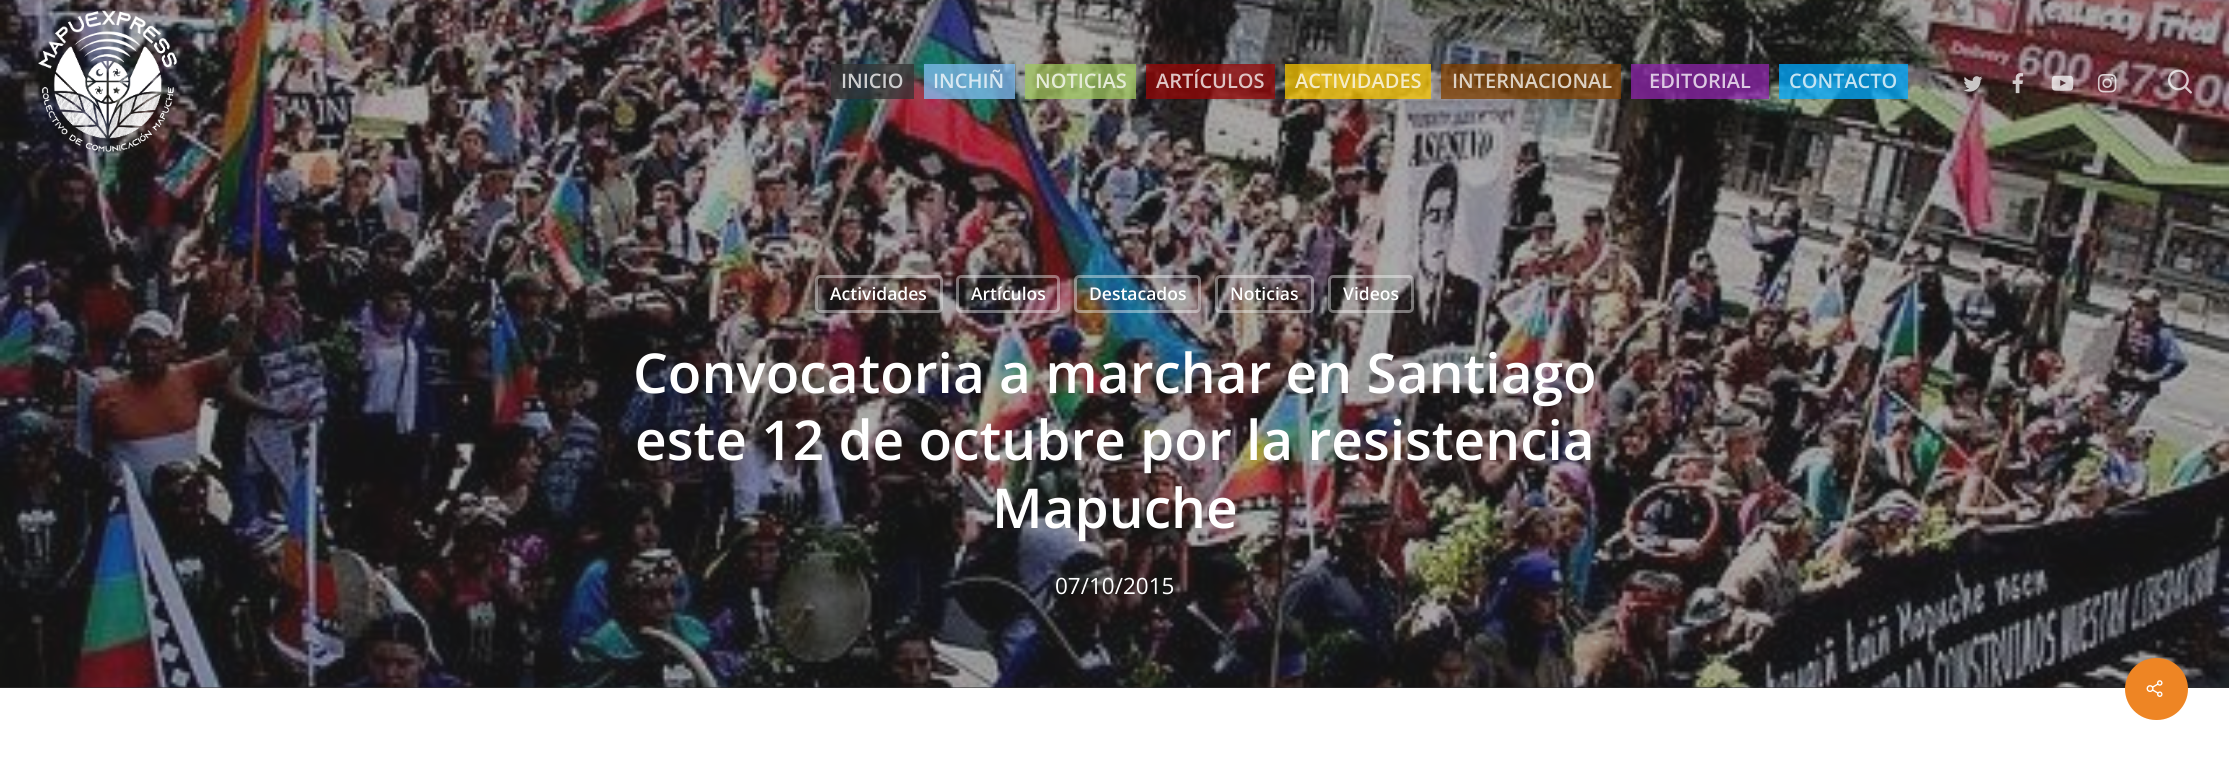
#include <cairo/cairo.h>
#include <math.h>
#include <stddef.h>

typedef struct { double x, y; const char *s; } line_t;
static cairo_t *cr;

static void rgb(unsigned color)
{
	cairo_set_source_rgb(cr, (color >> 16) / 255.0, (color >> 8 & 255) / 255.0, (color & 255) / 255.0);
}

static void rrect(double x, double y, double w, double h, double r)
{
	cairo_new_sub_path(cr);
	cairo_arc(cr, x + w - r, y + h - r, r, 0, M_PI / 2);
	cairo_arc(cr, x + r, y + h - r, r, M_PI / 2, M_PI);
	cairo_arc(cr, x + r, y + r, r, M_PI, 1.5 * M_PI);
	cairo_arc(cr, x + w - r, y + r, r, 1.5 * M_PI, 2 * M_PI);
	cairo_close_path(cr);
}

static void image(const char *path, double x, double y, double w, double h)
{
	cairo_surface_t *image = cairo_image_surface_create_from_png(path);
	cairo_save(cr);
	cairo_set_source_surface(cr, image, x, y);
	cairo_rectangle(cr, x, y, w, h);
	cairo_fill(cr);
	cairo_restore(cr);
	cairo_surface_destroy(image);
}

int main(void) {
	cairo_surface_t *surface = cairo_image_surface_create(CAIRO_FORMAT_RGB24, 2229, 762);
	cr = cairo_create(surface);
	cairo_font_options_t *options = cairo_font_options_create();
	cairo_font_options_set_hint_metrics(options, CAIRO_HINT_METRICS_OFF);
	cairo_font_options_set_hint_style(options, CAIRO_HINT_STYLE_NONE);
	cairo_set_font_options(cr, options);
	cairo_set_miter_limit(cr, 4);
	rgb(0xffffff);
	cairo_paint(cr);
	rgb(0x2d2d2d);
	cairo_rectangle(cr, 0, 687, 2229, 1);
	cairo_fill(cr);
	image("img/7.png", 0, 0, 2229, 688);
	image("img/1.png", 38, 10, 140, 142);
	cairo_set_source_rgba(cr, 0.2, 0.2, 0.2, 0.75);
	cairo_rectangle(cr, 831, 64, 83, 35);
	cairo_fill(cr);
	cairo_set_source_rgba(cr, 0.51, 0.745, 0.953, 0.75);
	cairo_rectangle(cr, 924, 64, 91, 35);
	cairo_fill(cr);
	cairo_set_source_rgba(cr, 0.62, 0.78, 0.365, 0.75);
	cairo_rectangle(cr, 1025, 64, 111, 35);
	cairo_fill(cr);
	cairo_set_source_rgba(cr, 0.584, 0.024, 0.024, 0.75);
	cairo_rectangle(cr, 1146, 64, 129, 35);
	cairo_fill(cr);
	cairo_set_source_rgba(cr, 0.969, 0.773, 0.004, 0.75);
	cairo_rectangle(cr, 1285, 64, 146, 35);
	cairo_fill(cr);
	cairo_set_source_rgba(cr, 0.502, 0.251, 0, 0.75);
	cairo_rectangle(cr, 1441, 64, 180, 35);
	cairo_fill(cr);
	cairo_set_source_rgba(cr, 0.553, 0.141, 0.671, 0.75);
	cairo_rectangle(cr, 1631, 64, 138, 35);
	cairo_fill(cr);
	cairo_set_source_rgba(cr, 0, 0.663, 1, 0.75);
	cairo_rectangle(cr, 1779, 64, 129, 35);
	cairo_fill(cr);
	image("img/2.png", 1963, 76, 20, 16);
	image("img/3.png", 2012, 73, 12, 21);
	image("img/4.png", 2051, 75, 23, 16);
	image("img/5.png", 2097, 74, 20, 19);
	image("img/6.png", 2168, 69, 24, 25);
	rrect(816.5, 276.5, 125, 35, 3.5);
	cairo_set_source_rgba(cr, 1, 1, 1, 0.4);
	cairo_set_line_width(cr, 3);
	cairo_stroke(cr);
	rrect(957.5, 276.5, 101, 35, 3.5);
	cairo_stroke(cr);
	rrect(1075.5, 276.5, 124, 35, 3.5);
	cairo_stroke(cr);
	rrect(1216.5, 276.5, 96, 35, 3.5);
	cairo_stroke(cr);
	rrect(1329.5, 276.5, 83, 35, 3.5);
	cairo_stroke(cr);
	rgb(0xee8524);
	rrect(2125, 658, 63, 62, 31);
	cairo_fill(cr);
	image("img/8.png", 2146, 680, 17, 17);
	cairo_select_font_face(cr, "Open Sans SemiBold", CAIRO_FONT_SLANT_NORMAL, CAIRO_FONT_WEIGHT_NORMAL);
	cairo_set_font_size(cr, 20);
	rgb(0xcececf);
	cairo_move_to(cr, 841, 88);
	cairo_show_text(cr, "INICIO");
	rgb(0xd9e8f2);
	cairo_move_to(cr, 933, 88);
	cairo_show_text(cr, "INCHIÑ");
	rgb(0xe4ebd7);
	cairo_move_to(cr, 1035, 88);
	cairo_show_text(cr, "NOTICIAS");
	rgb(0xdfc4c4);
	cairo_move_to(cr, 1156, 88);
	cairo_show_text(cr, "ARTÍCULOS");
	rgb(0xf5ebc6);
	cairo_move_to(cr, 1295, 88);
	cairo_show_text(cr, "ACTIVIDADES");
	rgb(0xdcd1c4);
	cairo_move_to(cr, 1452, 88);
	cairo_show_text(cr, "INTERNACIONAL");
	rgb(0xdcc8e2);
	cairo_move_to(cr, 1649, 88);
	cairo_show_text(cr, "EDITORIAL");
	rgb(0xc3e3f2);
	cairo_move_to(cr, 1789, 88);
	cairo_show_text(cr, "CONTACTO");
	cairo_set_font_size(cr, 17.5);
	rgb(0xffffff);
	{
		static const line_t items[] = {
			{830, 300, "Actividades"},
			{971, 300, "Artículos"},
			{1089, 300, "Destacados"},
			{1230, 300, "Noticias"},
			{1343, 300, "Videos"},
		};
		for (size_t i = 0; i < sizeof items / sizeof *items; i++) {
			cairo_move_to(cr, items[i].x, items[i].y);
			cairo_show_text(cr, items[i].s);
		}
	}
	cairo_set_font_size(cr, 55);
	{
		static const line_t items[] = {
			{633, 393, "Convocatoria a marchar en Santiago"},
			{635, 460, "este 12 de octubre por la resistencia"},
			{992, 528, "Mapuche"},
		};
		for (size_t i = 0; i < sizeof items / sizeof *items; i++) {
			cairo_move_to(cr, items[i].x, items[i].y);
			cairo_show_text(cr, items[i].s);
		}
	}
	cairo_select_font_face(cr, "Open Sans", CAIRO_FONT_SLANT_NORMAL, CAIRO_FONT_WEIGHT_NORMAL);
	cairo_set_font_size(cr, 22.5);
	cairo_move_to(cr, 1055, 594);
	cairo_show_text(cr, "07/10/2015");
	cairo_surface_write_to_png(surface, "page.png");
	cairo_font_options_destroy(options);
	cairo_destroy(cr);
	cairo_surface_destroy(surface);
	return 0;
}
